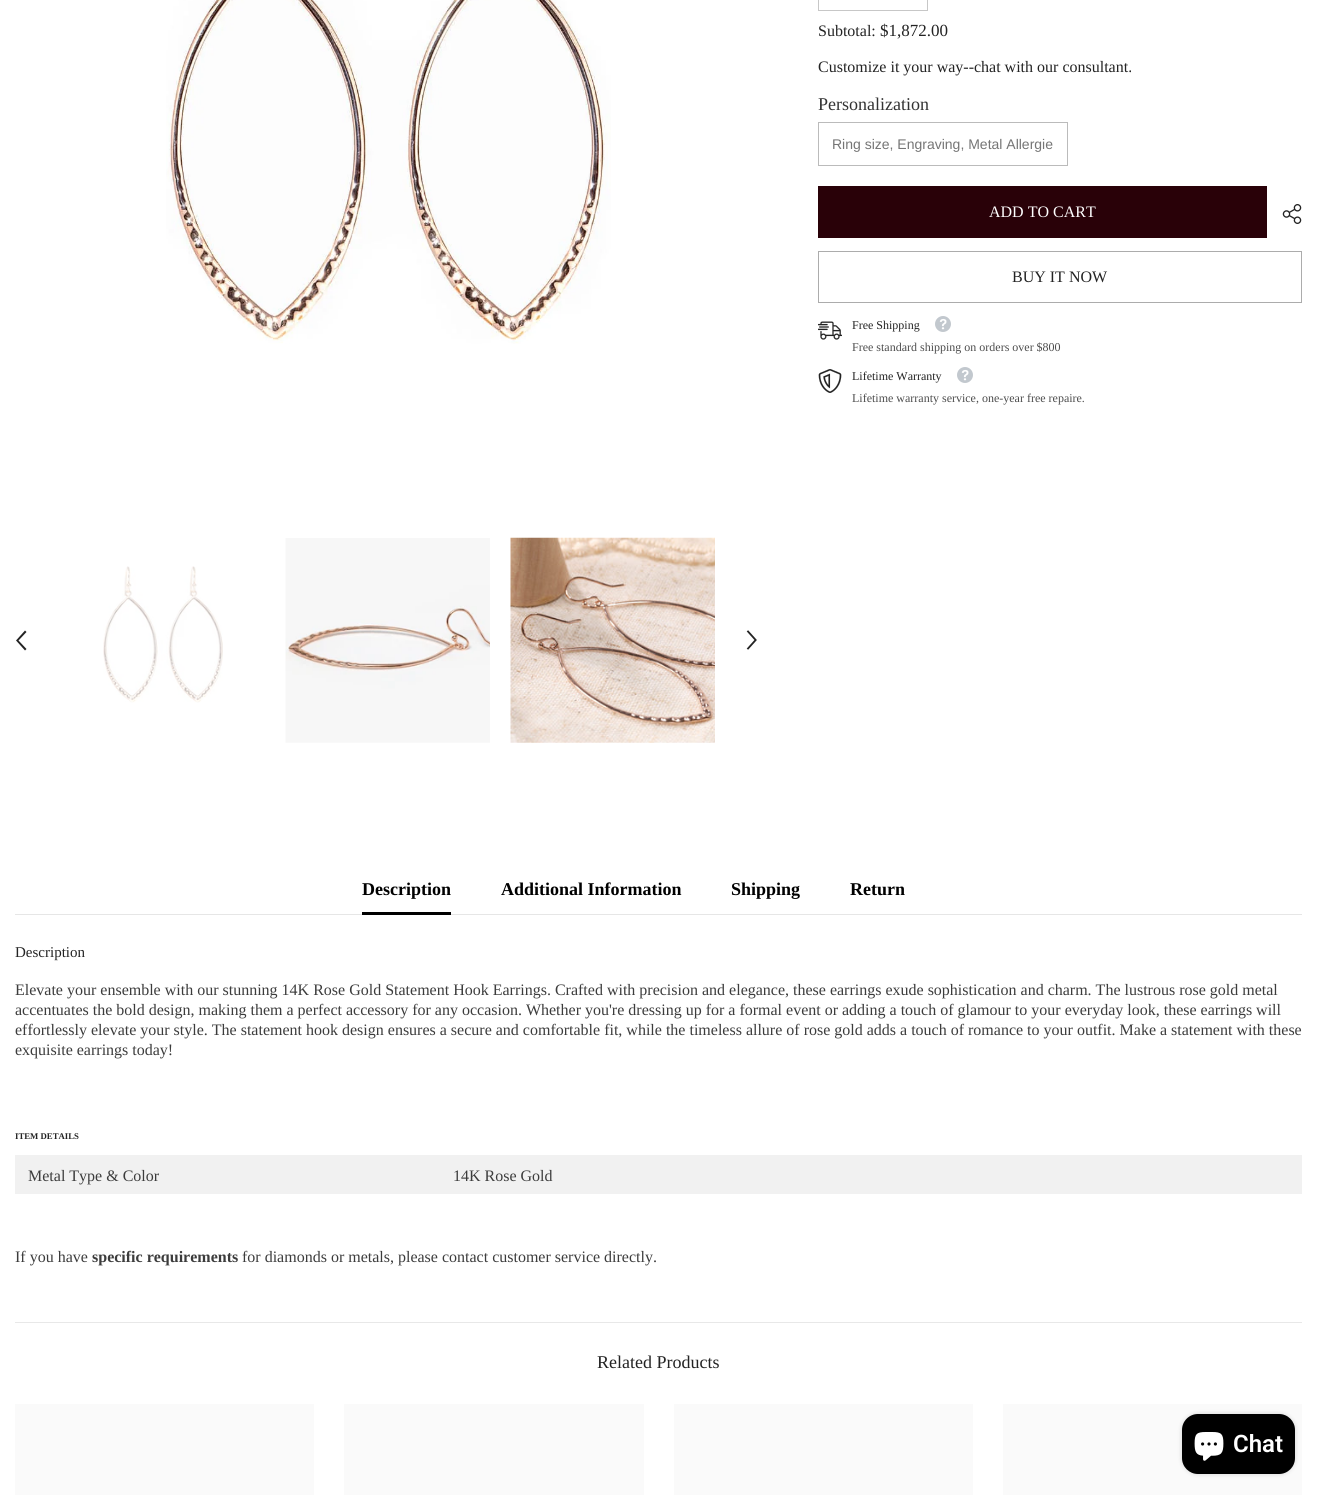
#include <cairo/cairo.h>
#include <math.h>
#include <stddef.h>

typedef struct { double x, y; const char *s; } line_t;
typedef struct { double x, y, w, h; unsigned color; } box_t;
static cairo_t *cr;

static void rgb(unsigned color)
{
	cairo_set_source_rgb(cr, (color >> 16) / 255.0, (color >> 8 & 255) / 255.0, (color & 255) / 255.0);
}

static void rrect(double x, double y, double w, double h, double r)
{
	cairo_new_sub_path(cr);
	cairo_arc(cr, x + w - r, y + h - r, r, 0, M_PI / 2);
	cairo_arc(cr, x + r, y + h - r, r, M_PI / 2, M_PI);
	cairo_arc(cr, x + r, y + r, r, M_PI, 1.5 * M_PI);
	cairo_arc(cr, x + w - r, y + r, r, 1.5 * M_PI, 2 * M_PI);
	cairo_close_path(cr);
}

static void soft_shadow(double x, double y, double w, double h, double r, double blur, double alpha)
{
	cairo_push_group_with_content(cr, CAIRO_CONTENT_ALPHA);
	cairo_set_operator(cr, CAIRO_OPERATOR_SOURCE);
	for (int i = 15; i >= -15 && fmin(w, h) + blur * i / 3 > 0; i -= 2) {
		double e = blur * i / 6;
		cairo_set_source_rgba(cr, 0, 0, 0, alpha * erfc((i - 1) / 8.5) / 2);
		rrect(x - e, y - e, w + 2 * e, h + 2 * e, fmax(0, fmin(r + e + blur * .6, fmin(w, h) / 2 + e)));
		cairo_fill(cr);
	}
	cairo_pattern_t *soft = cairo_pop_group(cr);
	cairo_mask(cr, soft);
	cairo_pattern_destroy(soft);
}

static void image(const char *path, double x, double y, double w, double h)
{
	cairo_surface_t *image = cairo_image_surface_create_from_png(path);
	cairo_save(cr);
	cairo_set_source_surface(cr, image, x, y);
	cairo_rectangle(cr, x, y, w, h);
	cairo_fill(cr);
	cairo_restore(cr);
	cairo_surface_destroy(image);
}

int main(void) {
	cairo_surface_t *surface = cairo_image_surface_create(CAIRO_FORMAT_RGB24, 1317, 1495);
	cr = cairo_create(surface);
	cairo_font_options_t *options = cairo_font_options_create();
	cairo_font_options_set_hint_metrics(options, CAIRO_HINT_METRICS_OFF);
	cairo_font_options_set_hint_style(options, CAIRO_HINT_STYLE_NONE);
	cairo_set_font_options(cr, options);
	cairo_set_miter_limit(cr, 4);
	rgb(0xffffff);
	cairo_paint(cr);
	image("img/1.png", 166, 0, 445, 344);
	rgb(0x232323);
	cairo_new_path(cr);
	cairo_move_to(cr, 25, 650.5);
	cairo_line_to(cr, 26.5, 649);
	cairo_line_to(cr, 18.5, 640.5);
	cairo_line_to(cr, 26.5, 632);
	cairo_line_to(cr, 25, 630.5);
	cairo_line_to(cr, 16, 640.5);
	cairo_line_to(cr, 16.5, 641);
	cairo_close_path(cr);
	cairo_fill(cr);
	image("img/2.png", 103, 566, 120, 137);
	image("img/3.png", 285, 538, 205, 205);
	image("img/4.png", 510, 537, 205, 206);
	image("img/5.png", 746, 630, 11, 20);
	cairo_rectangle(cr, 818.5, -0.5, 109, 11);
	rgb(0xc7c7c7);
	cairo_set_line_width(cr, 1);
	cairo_stroke(cr);
	cairo_rectangle(cr, 818.5, 122.5, 249, 43);
	rgb(0xbbbbbb);
	cairo_stroke(cr);
	rgb(0x290108);
	cairo_rectangle(cr, 818, 186, 449, 52);
	cairo_fill(cr);
	image("img/6.png", 1282, 204, 20, 20);
	cairo_rectangle(cr, 818.5, 251.5, 483, 51);
	rgb(0xacacac);
	cairo_stroke(cr);
	image("img/7.png", 818, 321, 24, 19);
	image("img/8.png", 935, 316, 16, 16);
	image("img/9.png", 818, 369, 24, 24);
	image("img/8.png", 957, 367, 16, 16);
	{
		static const box_t items[] = {
			{15, 914, 1287, 1, 0xe6e6e6},
			{362, 912, 89, 3, 0x000000},
			{15, 1155, 1287, 39, 0xf1f1f1},
			{15, 1322, 1287, 1, 0xe8e8e8},
			{15, 1404, 299, 91, 0xfafafa},
			{344, 1404, 300, 91, 0xfafafa},
			{674, 1404, 299, 91, 0xfafafa},
			{1003, 1404, 299, 91, 0xfafafa},
		};
		for (size_t i = 0; i < sizeof items / sizeof *items; i++) {
			rgb(items[i].color);
			cairo_rectangle(cr, items[i].x, items[i].y, items[i].w, items[i].h);
			cairo_fill(cr);
		}
	}
	rgb(0x000000);
	soft_shadow(1182, 1414, 113, 60, 16, 2.5, 0.15);
	rgb(0x000000);
	rrect(1182, 1414, 113, 60, 16);
	cairo_fill(cr);
	image("img/10.png", 1194, 1432, 30, 29);
	cairo_select_font_face(cr, "Liberation Serif", CAIRO_FONT_SLANT_NORMAL, CAIRO_FONT_WEIGHT_NORMAL);
	cairo_set_font_size(cr, 16);
	rgb(0x232323);
	cairo_move_to(cr, 818, 36);
	cairo_show_text(cr, "Subtotal:");
	cairo_set_font_size(cr, 17);
	cairo_move_to(cr, 880, 36);
	cairo_show_text(cr, "$1,872.00");
	cairo_set_font_size(cr, 16);
	cairo_move_to(cr, 818, 72);
	cairo_show_text(cr, "Customize it your way--chat with our consultant.");
	cairo_set_font_size(cr, 18);
	rgb(0x333333);
	cairo_move_to(cr, 818, 110);
	cairo_show_text(cr, "Personalization");
	cairo_select_font_face(cr, "Liberation Sans", CAIRO_FONT_SLANT_NORMAL, CAIRO_FONT_WEIGHT_NORMAL);
	cairo_set_font_size(cr, 14);
	rgb(0x757575);
	cairo_move_to(cr, 832, 149);
	cairo_show_text(cr, "Ring size, Engraving, Metal Allergie");
	cairo_select_font_face(cr, "Liberation Serif", CAIRO_FONT_SLANT_NORMAL, CAIRO_FONT_WEIGHT_NORMAL);
	cairo_set_font_size(cr, 16);
	rgb(0xffffff);
	cairo_move_to(cr, 989, 217);
	cairo_show_text(cr, "ADD TO CART");
	rgb(0x232323);
	cairo_move_to(cr, 1012, 282);
	cairo_show_text(cr, "BUY IT NOW");
	cairo_set_font_size(cr, 12);
	cairo_move_to(cr, 852, 329);
	cairo_show_text(cr, "Free Shipping");
	rgb(0x4d4d4d);
	cairo_move_to(cr, 852, 351);
	cairo_show_text(cr, "Free standard shipping on orders over $800");
	rgb(0x232323);
	cairo_move_to(cr, 852, 380);
	cairo_show_text(cr, "Lifetime Warranty");
	rgb(0x4d4d4d);
	cairo_move_to(cr, 852, 402);
	cairo_show_text(cr, "Lifetime warranty service, one-year free repaire.");
	cairo_select_font_face(cr, "Liberation Serif", CAIRO_FONT_SLANT_NORMAL, CAIRO_FONT_WEIGHT_BOLD);
	cairo_set_font_size(cr, 18);
	rgb(0x000000);
	{
		static const line_t items[] = {
			{362, 895, "Description"},
			{501, 895, "Additional Information"},
			{731, 895, "Shipping"},
			{850, 895, "Return"},
		};
		for (size_t i = 0; i < sizeof items / sizeof *items; i++) {
			cairo_move_to(cr, items[i].x, items[i].y);
			cairo_show_text(cr, items[i].s);
		}
	}
	cairo_select_font_face(cr, "Liberation Serif", CAIRO_FONT_SLANT_NORMAL, CAIRO_FONT_WEIGHT_NORMAL);
	cairo_set_font_size(cr, 15);
	rgb(0x232323);
	cairo_move_to(cr, 15, 957);
	cairo_show_text(cr, "Description");
	cairo_set_font_size(cr, 16);
	rgb(0x3c3c3c);
	{
		static const line_t items[] = {
			{15, 995, "Elevate your ensemble with our stunning 14K Rose Gold Statement Hook Earrings. Crafted with precision and elegance, these earrings exude sophistication and charm. The lustrous rose gold metal"},
			{15, 1015, "accentuates the bold design, making them a perfect accessory for any occasion. Whether you're dressing up for a formal event or adding a touch of glamour to your everyday look, these earrings will"},
			{15, 1035, "effortlessly elevate your style. The statement hook design ensures a secure and comfortable fit, while the timeless allure of rose gold adds a touch of romance to your outfit. Make a statement with these"},
			{15, 1055, "exquisite earrings today!"},
		};
		for (size_t i = 0; i < sizeof items / sizeof *items; i++) {
			cairo_move_to(cr, items[i].x, items[i].y);
			cairo_show_text(cr, items[i].s);
		}
	}
	cairo_select_font_face(cr, "Liberation Serif", CAIRO_FONT_SLANT_NORMAL, CAIRO_FONT_WEIGHT_BOLD);
	cairo_set_font_size(cr, 8.75);
	rgb(0x232323);
	cairo_move_to(cr, 15, 1139);
	cairo_show_text(cr, "ITEM DETAILS");
	cairo_select_font_face(cr, "Liberation Serif", CAIRO_FONT_SLANT_NORMAL, CAIRO_FONT_WEIGHT_NORMAL);
	cairo_set_font_size(cr, 16);
	rgb(0x3c3c3c);
	{
		static const line_t items[] = {
			{28, 1181, "Metal Type & Color"},
			{453, 1181, "14K Rose Gold"},
			{15, 1262, "If you have"},
		};
		for (size_t i = 0; i < sizeof items / sizeof *items; i++) {
			cairo_move_to(cr, items[i].x, items[i].y);
			cairo_show_text(cr, items[i].s);
		}
	}
	cairo_select_font_face(cr, "Liberation Serif", CAIRO_FONT_SLANT_NORMAL, CAIRO_FONT_WEIGHT_BOLD);
	cairo_move_to(cr, 92, 1262);
	cairo_show_text(cr, "specific requirements");
	cairo_select_font_face(cr, "Liberation Serif", CAIRO_FONT_SLANT_NORMAL, CAIRO_FONT_WEIGHT_NORMAL);
	cairo_move_to(cr, 242, 1262);
	cairo_show_text(cr, "for diamonds or metals, please contact customer service directly.");
	cairo_set_font_size(cr, 18);
	rgb(0x232323);
	cairo_move_to(cr, 597, 1368);
	cairo_show_text(cr, "Related Products");
	cairo_select_font_face(cr, "Roboto SemiBold", CAIRO_FONT_SLANT_NORMAL, CAIRO_FONT_WEIGHT_NORMAL);
	cairo_set_font_size(cr, 24);
	rgb(0xffffff);
	cairo_move_to(cr, 1233, 1452);
	cairo_show_text(cr, "Chat");
	cairo_surface_write_to_png(surface, "page.png");
	cairo_font_options_destroy(options);
	cairo_destroy(cr);
	cairo_surface_destroy(surface);
	return 0;
}
